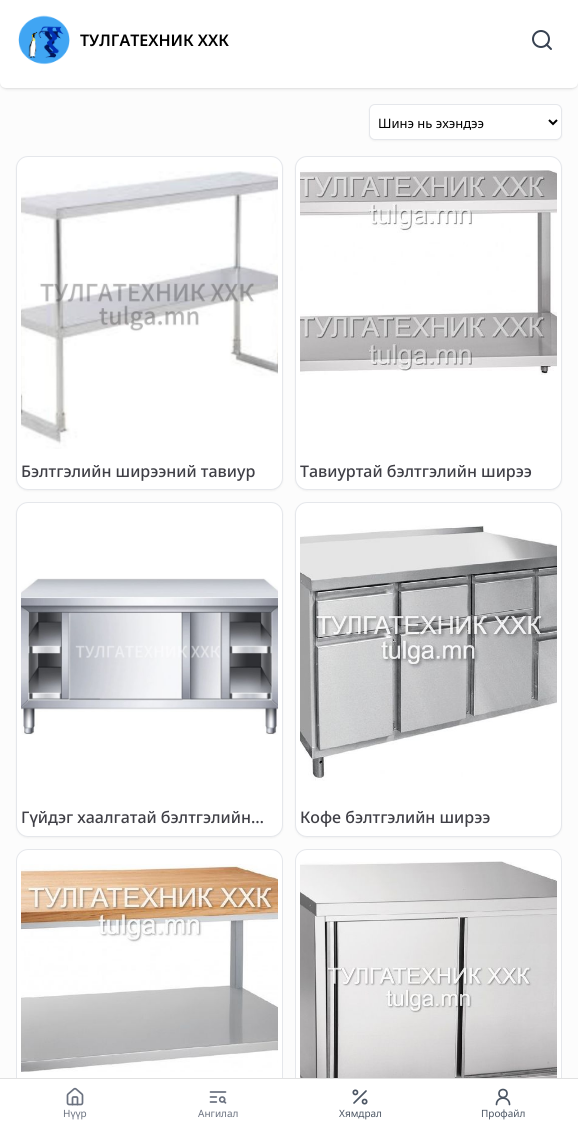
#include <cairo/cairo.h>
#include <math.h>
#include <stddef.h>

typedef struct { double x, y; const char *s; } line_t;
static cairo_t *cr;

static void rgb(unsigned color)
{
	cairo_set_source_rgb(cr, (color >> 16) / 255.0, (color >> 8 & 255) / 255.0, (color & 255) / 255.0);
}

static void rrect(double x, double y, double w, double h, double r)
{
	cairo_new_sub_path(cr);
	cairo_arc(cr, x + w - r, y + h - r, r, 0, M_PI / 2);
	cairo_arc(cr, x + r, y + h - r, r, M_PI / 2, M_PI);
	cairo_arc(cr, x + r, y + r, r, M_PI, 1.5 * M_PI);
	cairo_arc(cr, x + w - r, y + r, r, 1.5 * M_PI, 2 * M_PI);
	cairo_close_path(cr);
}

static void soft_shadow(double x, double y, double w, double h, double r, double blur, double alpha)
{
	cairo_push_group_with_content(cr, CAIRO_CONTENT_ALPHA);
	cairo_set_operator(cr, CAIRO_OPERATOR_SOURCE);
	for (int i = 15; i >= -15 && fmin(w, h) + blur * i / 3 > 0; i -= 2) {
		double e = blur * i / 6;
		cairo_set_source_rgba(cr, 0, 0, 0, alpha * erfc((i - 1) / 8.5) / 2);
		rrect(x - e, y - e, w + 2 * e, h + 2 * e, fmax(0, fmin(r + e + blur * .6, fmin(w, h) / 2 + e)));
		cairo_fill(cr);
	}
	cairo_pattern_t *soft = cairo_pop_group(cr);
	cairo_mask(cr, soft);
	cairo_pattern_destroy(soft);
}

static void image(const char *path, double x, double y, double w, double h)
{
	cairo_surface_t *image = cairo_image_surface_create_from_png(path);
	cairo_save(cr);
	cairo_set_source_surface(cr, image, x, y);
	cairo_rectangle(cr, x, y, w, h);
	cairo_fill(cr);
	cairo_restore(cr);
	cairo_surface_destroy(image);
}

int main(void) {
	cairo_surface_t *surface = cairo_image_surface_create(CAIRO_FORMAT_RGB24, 578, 1127);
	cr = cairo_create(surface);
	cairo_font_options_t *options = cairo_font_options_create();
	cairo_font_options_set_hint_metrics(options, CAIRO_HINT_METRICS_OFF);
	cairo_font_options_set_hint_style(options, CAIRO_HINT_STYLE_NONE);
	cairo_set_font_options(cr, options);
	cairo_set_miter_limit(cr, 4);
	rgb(0xfcfcfc);
	cairo_paint(cr);
	rgb(0x000000);
	soft_shadow(1, 2, 576, 86, 5, 1, 0.1);
	soft_shadow(0, 1, 578, 88, 6, 1.5, 0.1);
	rgb(0xffffff);
	cairo_new_path(cr);
	cairo_move_to(cr, 0, 0);
	cairo_line_to(cr, 578, 0);
	cairo_line_to(cr, 578, 82);
	cairo_curve_to(cr, 578, 85.5, 575.5, 88, 572, 88);
	cairo_line_to(cr, 6, 88);
	cairo_curve_to(cr, 2.5, 88, 0, 85.5, 0, 82);
	cairo_close_path(cr);
	cairo_fill(cr);
	image("img/1.png", 18, 15, 52, 50);
	cairo_arc(cr, 541, 39, 8, 0, 2 * M_PI);
	rgb(0x374151);
	cairo_stroke(cr);
	cairo_new_path(cr);
	cairo_move_to(cr, 551, 49);
	cairo_line_to(cr, 546.5, 44.5);
	cairo_set_line_cap(cr, CAIRO_LINE_CAP_ROUND);
	cairo_set_line_join(cr, CAIRO_LINE_JOIN_ROUND);
	cairo_stroke(cr);
	rgb(0x000000);
	soft_shadow(369, 105, 193, 36, 6, 1, 0.05);
	rgb(0xffffff);
	rrect(369.5, 104.5, 192, 35, 5.5);
	cairo_fill_preserve(cr);
	rgb(0xe5e7eb);
	cairo_set_line_width(cr, 1);
	cairo_set_line_cap(cr, CAIRO_LINE_CAP_BUTT);
	cairo_set_line_join(cr, CAIRO_LINE_JOIN_MITER);
	cairo_stroke(cr);
	cairo_new_path(cr);
	cairo_move_to(cr, 549, 120);
	cairo_line_to(cr, 553, 124);
	cairo_line_to(cr, 557, 120);
	rgb(0x000000);
	cairo_set_line_width(cr, 2);
	cairo_stroke(cr);
	rgb(0x000000);
	soft_shadow(16, 157, 267, 334, 12, 1, 0.05);
	rgb(0xffffff);
	rrect(16.5, 156.5, 266, 333, 11.5);
	cairo_fill_preserve(cr);
	rgb(0xe5e7eb);
	cairo_set_line_width(cr, 1);
	cairo_stroke(cr);
	image("img/2.png", 21, 163, 257, 286);
	rgb(0x000000);
	soft_shadow(295, 157, 267, 334, 12, 1, 0.05);
	rgb(0xffffff);
	rrect(295.5, 156.5, 266, 333, 11.5);
	cairo_fill_preserve(cr);
	rgb(0xe5e7eb);
	cairo_stroke(cr);
	image("img/3.png", 300, 170, 257, 205);
	rgb(0x000000);
	soft_shadow(16, 503, 267, 335, 12, 1, 0.05);
	rgb(0xffffff);
	rrect(16.5, 502.5, 266, 334, 11.5);
	cairo_fill_preserve(cr);
	rgb(0xe5e7eb);
	cairo_stroke(cr);
	image("img/4.png", 21, 578, 257, 157);
	rgb(0x000000);
	soft_shadow(295, 503, 267, 335, 12, 1, 0.05);
	rgb(0xffffff);
	rrect(295.5, 502.5, 266, 334, 11.5);
	cairo_fill_preserve(cr);
	rgb(0xe5e7eb);
	cairo_stroke(cr);
	image("img/5.png", 300, 525, 257, 256);
	rgb(0xffffff);
	rrect(16.5, 849.5, 266, 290, 11.5);
	cairo_fill_preserve(cr);
	rgb(0xe5e7eb);
	cairo_stroke(cr);
	image("img/6.png", 21, 864, 257, 208);
	rgb(0xffffff);
	rrect(295.5, 849.5, 266, 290, 11.5);
	cairo_fill_preserve(cr);
	rgb(0xe5e7eb);
	cairo_stroke(cr);
	image("img/7.png", 300, 861, 257, 217);
	rgb(0xffffff);
	cairo_rectangle(cr, 0, 1079, 578, 48);
	cairo_fill(cr);
	rgb(0xe1e1e1);
	cairo_rectangle(cr, 0, 1078, 578, 1);
	cairo_fill(cr);
	image("img/8.png", 66, 1087, 18, 19);
	image("img/9.png", 209, 1091, 18, 13);
	cairo_new_path(cr);
	cairo_move_to(cr, 366, 1091);
	cairo_line_to(cr, 354, 1103);
	rgb(0x4b5563);
	cairo_set_line_width(cr, 1.7);
	cairo_set_line_cap(cr, CAIRO_LINE_CAP_ROUND);
	cairo_set_line_join(cr, CAIRO_LINE_JOIN_ROUND);
	cairo_stroke(cr);
	cairo_arc(cr, 355.4, 1092.4, 2.1, 0, 2 * M_PI);
	cairo_set_line_cap(cr, CAIRO_LINE_CAP_BUTT);
	cairo_set_line_join(cr, CAIRO_LINE_JOIN_MITER);
	cairo_stroke(cr);
	cairo_arc(cr, 364.6, 1101.6, 2.1, 0, 2 * M_PI);
	cairo_stroke(cr);
	cairo_arc(cr, 503, 1093.5, 4, 0, 2 * M_PI);
	cairo_stroke(cr);
	cairo_new_path(cr);
	cairo_move_to(cr, 509.5, 1104.5);
	cairo_curve_to(cr, 509.5, 1096, 496.5, 1096, 496.5, 1104.5);
	cairo_set_line_cap(cr, CAIRO_LINE_CAP_ROUND);
	cairo_set_line_join(cr, CAIRO_LINE_JOIN_ROUND);
	cairo_stroke(cr);
	cairo_select_font_face(cr, "Noto Sans SemiBold", CAIRO_FONT_SLANT_NORMAL, CAIRO_FONT_WEIGHT_NORMAL);
	cairo_set_font_size(cr, 16);
	rgb(0x000000);
	cairo_move_to(cr, 80, 46);
	cairo_show_text(cr, "ТУЛГАТЕХНИК ХХК");
	cairo_select_font_face(cr, "Noto Sans", CAIRO_FONT_SLANT_NORMAL, CAIRO_FONT_WEIGHT_NORMAL);
	cairo_set_font_size(cr, 13);
	cairo_move_to(cr, 378, 128);
	cairo_show_text(cr, "Шинэ нь эхэндээ");
	cairo_select_font_face(cr, "Noto Sans Medium", CAIRO_FONT_SLANT_NORMAL, CAIRO_FONT_WEIGHT_NORMAL);
	cairo_set_font_size(cr, 16);
	rgb(0x3f3f46);
	{
		static const line_t items[] = {
			{21, 477, "Бэлтгэлийн ширээний тавиур"},
			{300, 477, "Тавиуртай бэлтгэлийн ширээ"},
			{21, 823, "Гүйдэг хаалгатай бэлтгэлийн…"},
			{300, 823, "Кофе бэлтгэлийн ширээ"},
		};
		for (size_t i = 0; i < sizeof items / sizeof *items; i++) {
			cairo_move_to(cr, items[i].x, items[i].y);
			cairo_show_text(cr, items[i].s);
		}
	}
	cairo_select_font_face(cr, "Noto Sans", CAIRO_FONT_SLANT_NORMAL, CAIRO_FONT_WEIGHT_NORMAL);
	cairo_set_font_size(cr, 10);
	rgb(0x6b7280);
	cairo_move_to(cr, 63, 1117);
	cairo_show_text(cr, "Нүүр");
	cairo_move_to(cr, 198, 1117);
	cairo_show_text(cr, "Ангилал");
	rgb(0x4b5563);
	cairo_move_to(cr, 339, 1117);
	cairo_show_text(cr, "Хямдрал");
	cairo_move_to(cr, 481, 1117);
	cairo_show_text(cr, "Профайл");
	cairo_surface_write_to_png(surface, "page.png");
	cairo_font_options_destroy(options);
	cairo_destroy(cr);
	cairo_surface_destroy(surface);
	return 0;
}
